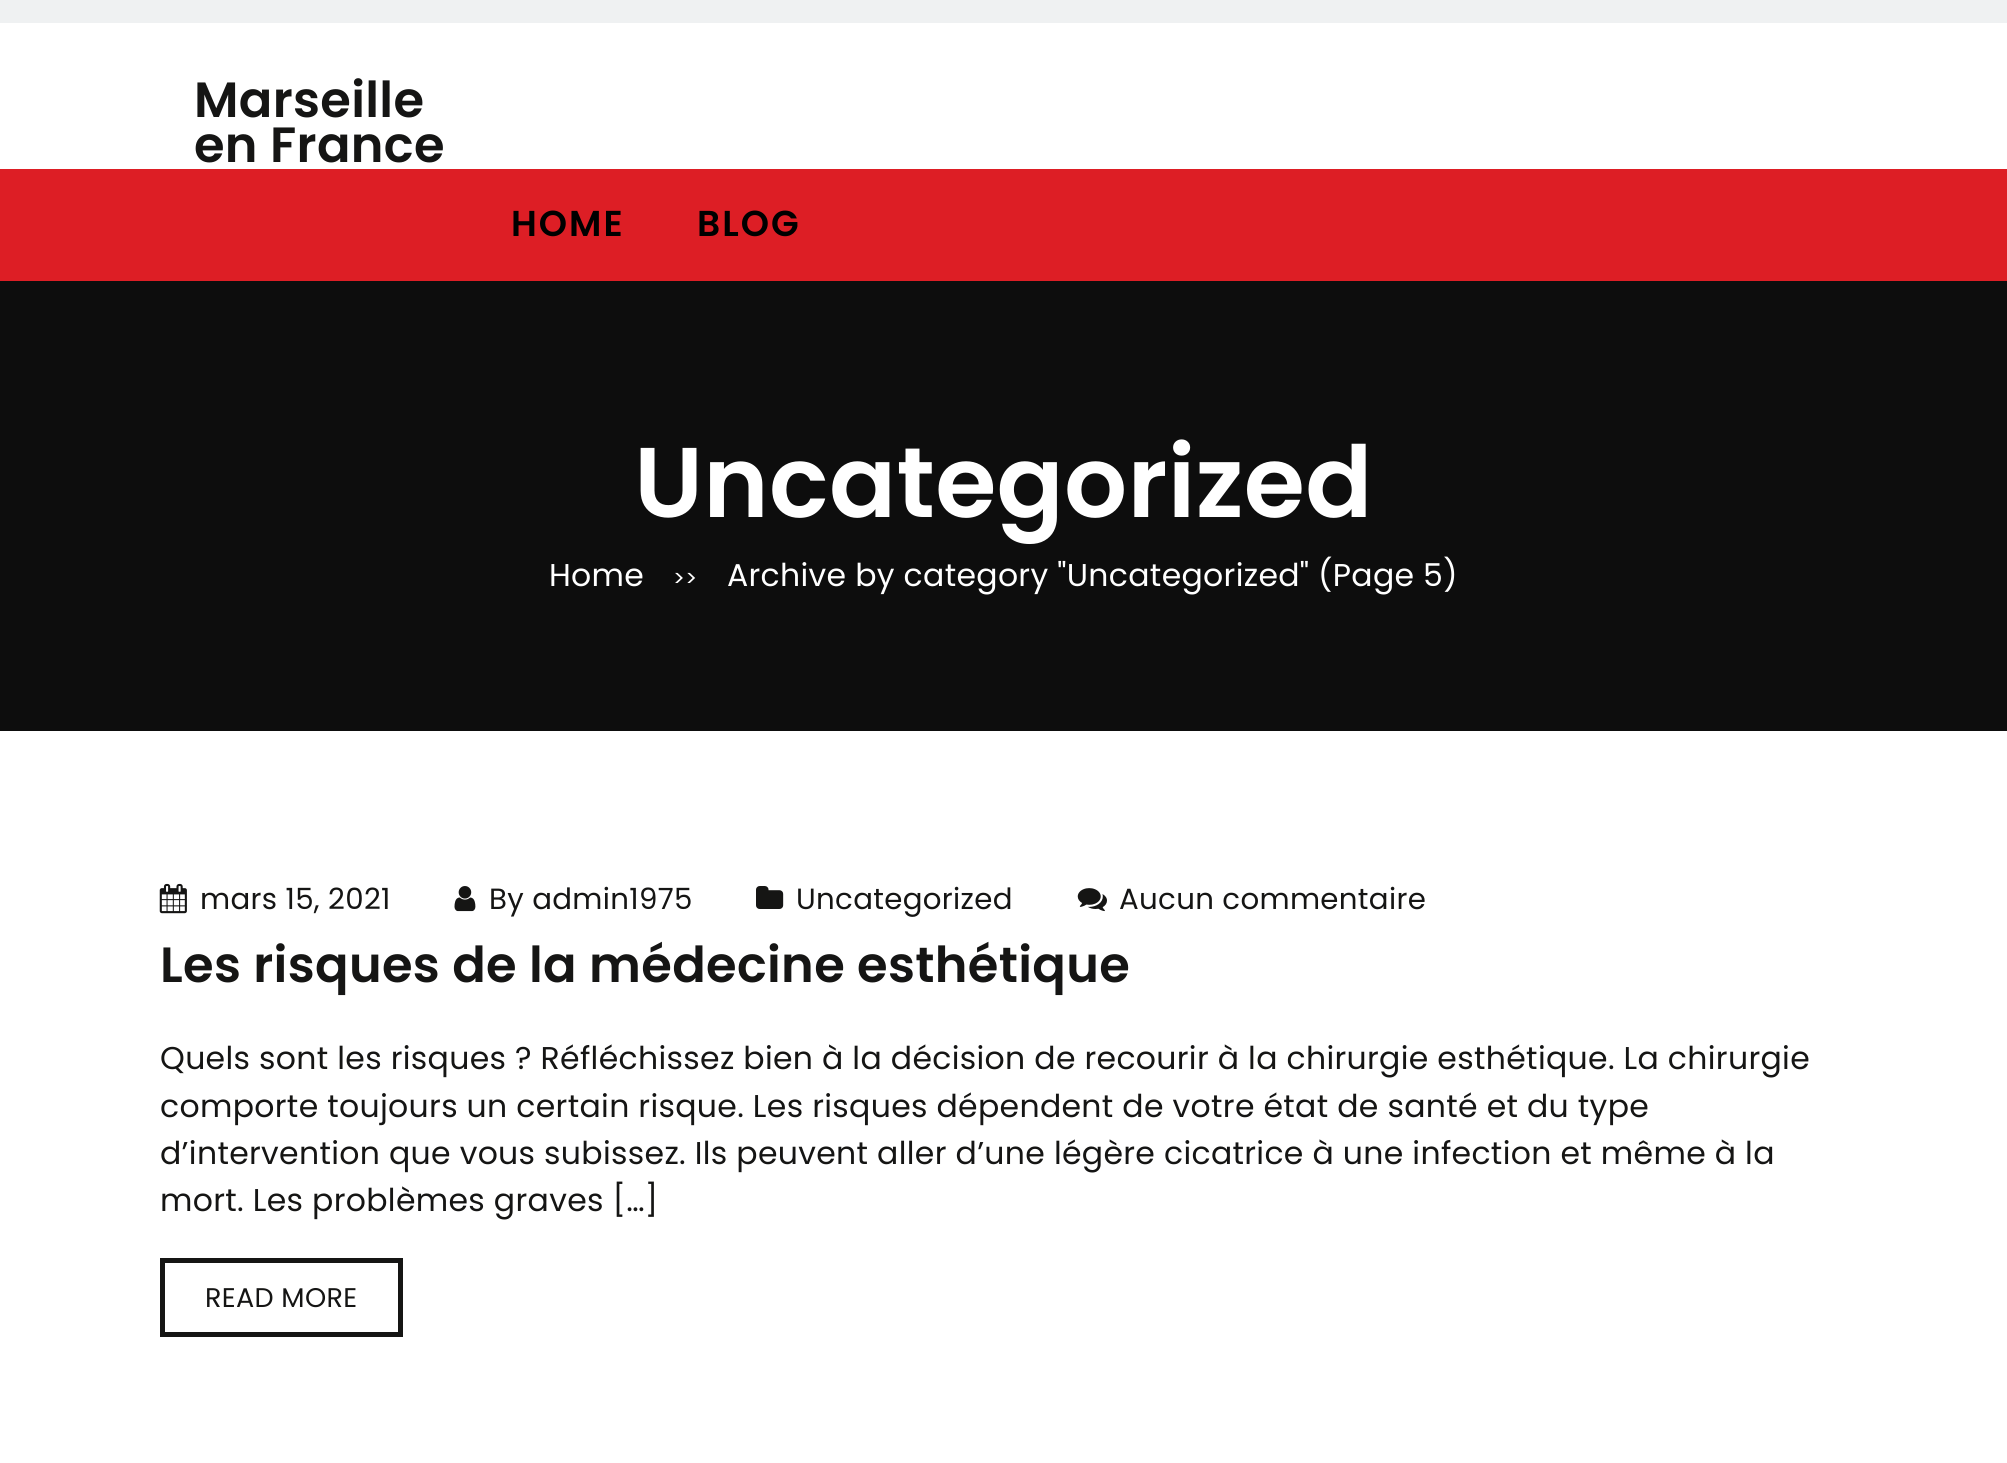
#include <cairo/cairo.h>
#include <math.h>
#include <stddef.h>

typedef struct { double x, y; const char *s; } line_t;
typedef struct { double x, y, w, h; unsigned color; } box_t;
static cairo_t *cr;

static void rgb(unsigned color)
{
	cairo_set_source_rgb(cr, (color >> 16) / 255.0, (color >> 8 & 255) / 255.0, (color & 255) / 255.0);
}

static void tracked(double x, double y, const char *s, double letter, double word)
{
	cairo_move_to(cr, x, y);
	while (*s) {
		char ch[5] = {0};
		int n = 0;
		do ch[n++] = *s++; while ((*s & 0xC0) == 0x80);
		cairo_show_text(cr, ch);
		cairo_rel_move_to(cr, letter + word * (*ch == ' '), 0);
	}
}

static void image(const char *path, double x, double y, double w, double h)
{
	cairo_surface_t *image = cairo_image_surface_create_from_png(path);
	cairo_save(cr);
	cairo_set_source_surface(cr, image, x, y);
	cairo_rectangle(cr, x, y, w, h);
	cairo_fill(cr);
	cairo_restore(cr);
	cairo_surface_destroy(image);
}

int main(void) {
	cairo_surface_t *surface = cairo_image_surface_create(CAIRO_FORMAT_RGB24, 2007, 1463);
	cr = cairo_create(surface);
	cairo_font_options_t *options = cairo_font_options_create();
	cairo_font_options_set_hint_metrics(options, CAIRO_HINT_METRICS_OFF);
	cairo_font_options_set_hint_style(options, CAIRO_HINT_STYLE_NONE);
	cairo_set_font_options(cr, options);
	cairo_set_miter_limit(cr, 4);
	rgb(0xffffff);
	cairo_paint(cr);
	{
		static const box_t items[] = {
			{0, 0, 2007, 23, 0xeff1f2},
			{0, 169, 2007, 112, 0xdd1e25},
			{0, 281, 2007, 450, 0x0d0d0d},
		};
		for (size_t i = 0; i < sizeof items / sizeof *items; i++) {
			rgb(items[i].color);
			cairo_rectangle(cr, items[i].x, items[i].y, items[i].w, items[i].h);
			cairo_fill(cr);
		}
	}
	image("img/1.png", 159, 883, 28, 31);
	image("img/2.png", 454, 886, 22, 26);
	image("img/3.png", 756, 886, 28, 23);
	image("img/4.png", 1077, 888, 30, 24);
	cairo_rectangle(cr, 162.5, 1260.5, 238, 74);
	rgb(0x151514);
	cairo_set_line_width(cr, 5);
	cairo_stroke(cr);
	cairo_select_font_face(cr, "Poppins SemiBold", CAIRO_FONT_SLANT_NORMAL, CAIRO_FONT_WEIGHT_NORMAL);
	cairo_set_font_size(cr, 49.5);
	tracked(194, 117, "Marseille", 0.32, 0);
	tracked(194, 162, "en France", 0.32, 0);
	cairo_set_font_size(cr, 36);
	rgb(0x000000);
	tracked(511, 236, "HOME", 2, 0);
	tracked(697, 236, "BLOG", 2, 0);
	cairo_set_font_size(cr, 99);
	rgb(0xffffff);
	tracked(634, 517, "Uncategorized", 0.32, 0);
	cairo_select_font_face(cr, "Poppins", CAIRO_FONT_SLANT_NORMAL, CAIRO_FONT_WEIGHT_NORMAL);
	cairo_set_font_size(cr, 31.5);
	tracked(549, 586, "Home", 0.32, 0);
	cairo_set_font_size(cr, 22);
	tracked(673, 586, ">>", 0.32, 0);
	cairo_set_font_size(cr, 31.5);
	tracked(727, 586, "Archive by category \"Uncategorized\" (Page 5)", 0.32, 0);
	cairo_set_font_size(cr, 29.25);
	rgb(0x151514);
	{
		static const line_t items[] = {
			{200, 909, "mars 15, 2021"},
			{489, 909, "By admin1975"},
			{796, 909, "Uncategorized"},
			{1119, 909, "Aucun commentaire"},
		};
		for (size_t i = 0; i < sizeof items / sizeof *items; i++) {
			tracked(items[i].x, items[i].y, items[i].s, 0.32, 0);
		}
	}
	cairo_select_font_face(cr, "Poppins SemiBold", CAIRO_FONT_SLANT_NORMAL, CAIRO_FONT_WEIGHT_NORMAL);
	cairo_set_font_size(cr, 49.5);
	tracked(160, 982, "Les risques de la médecine esthétique", 0.32, 0);
	cairo_select_font_face(cr, "Poppins", CAIRO_FONT_SLANT_NORMAL, CAIRO_FONT_WEIGHT_NORMAL);
	cairo_set_font_size(cr, 31.5);
	{
		static const line_t items[] = {
			{160, 1069, "Quels sont les risques ? Réfléchissez bien à la décision de recourir à la chirurgie esthétique. La chirurgie"},
			{160, 1117, "comporte toujours un certain risque. Les risques dépendent de votre état de santé et du type"},
			{160, 1164, "d’intervention que vous subissez. Ils peuvent aller d’une légère cicatrice à une infection et même à la"},
			{160, 1211, "mort. Les problèmes graves […]"},
		};
		for (size_t i = 0; i < sizeof items / sizeof *items; i++) {
			tracked(items[i].x, items[i].y, items[i].s, 0.32, 0);
		}
	}
	cairo_set_font_size(cr, 27);
	tracked(205, 1307, "READ MORE", 0.32, 0);
	cairo_surface_write_to_png(surface, "page.png");
	cairo_font_options_destroy(options);
	cairo_destroy(cr);
	cairo_surface_destroy(surface);
	return 0;
}
